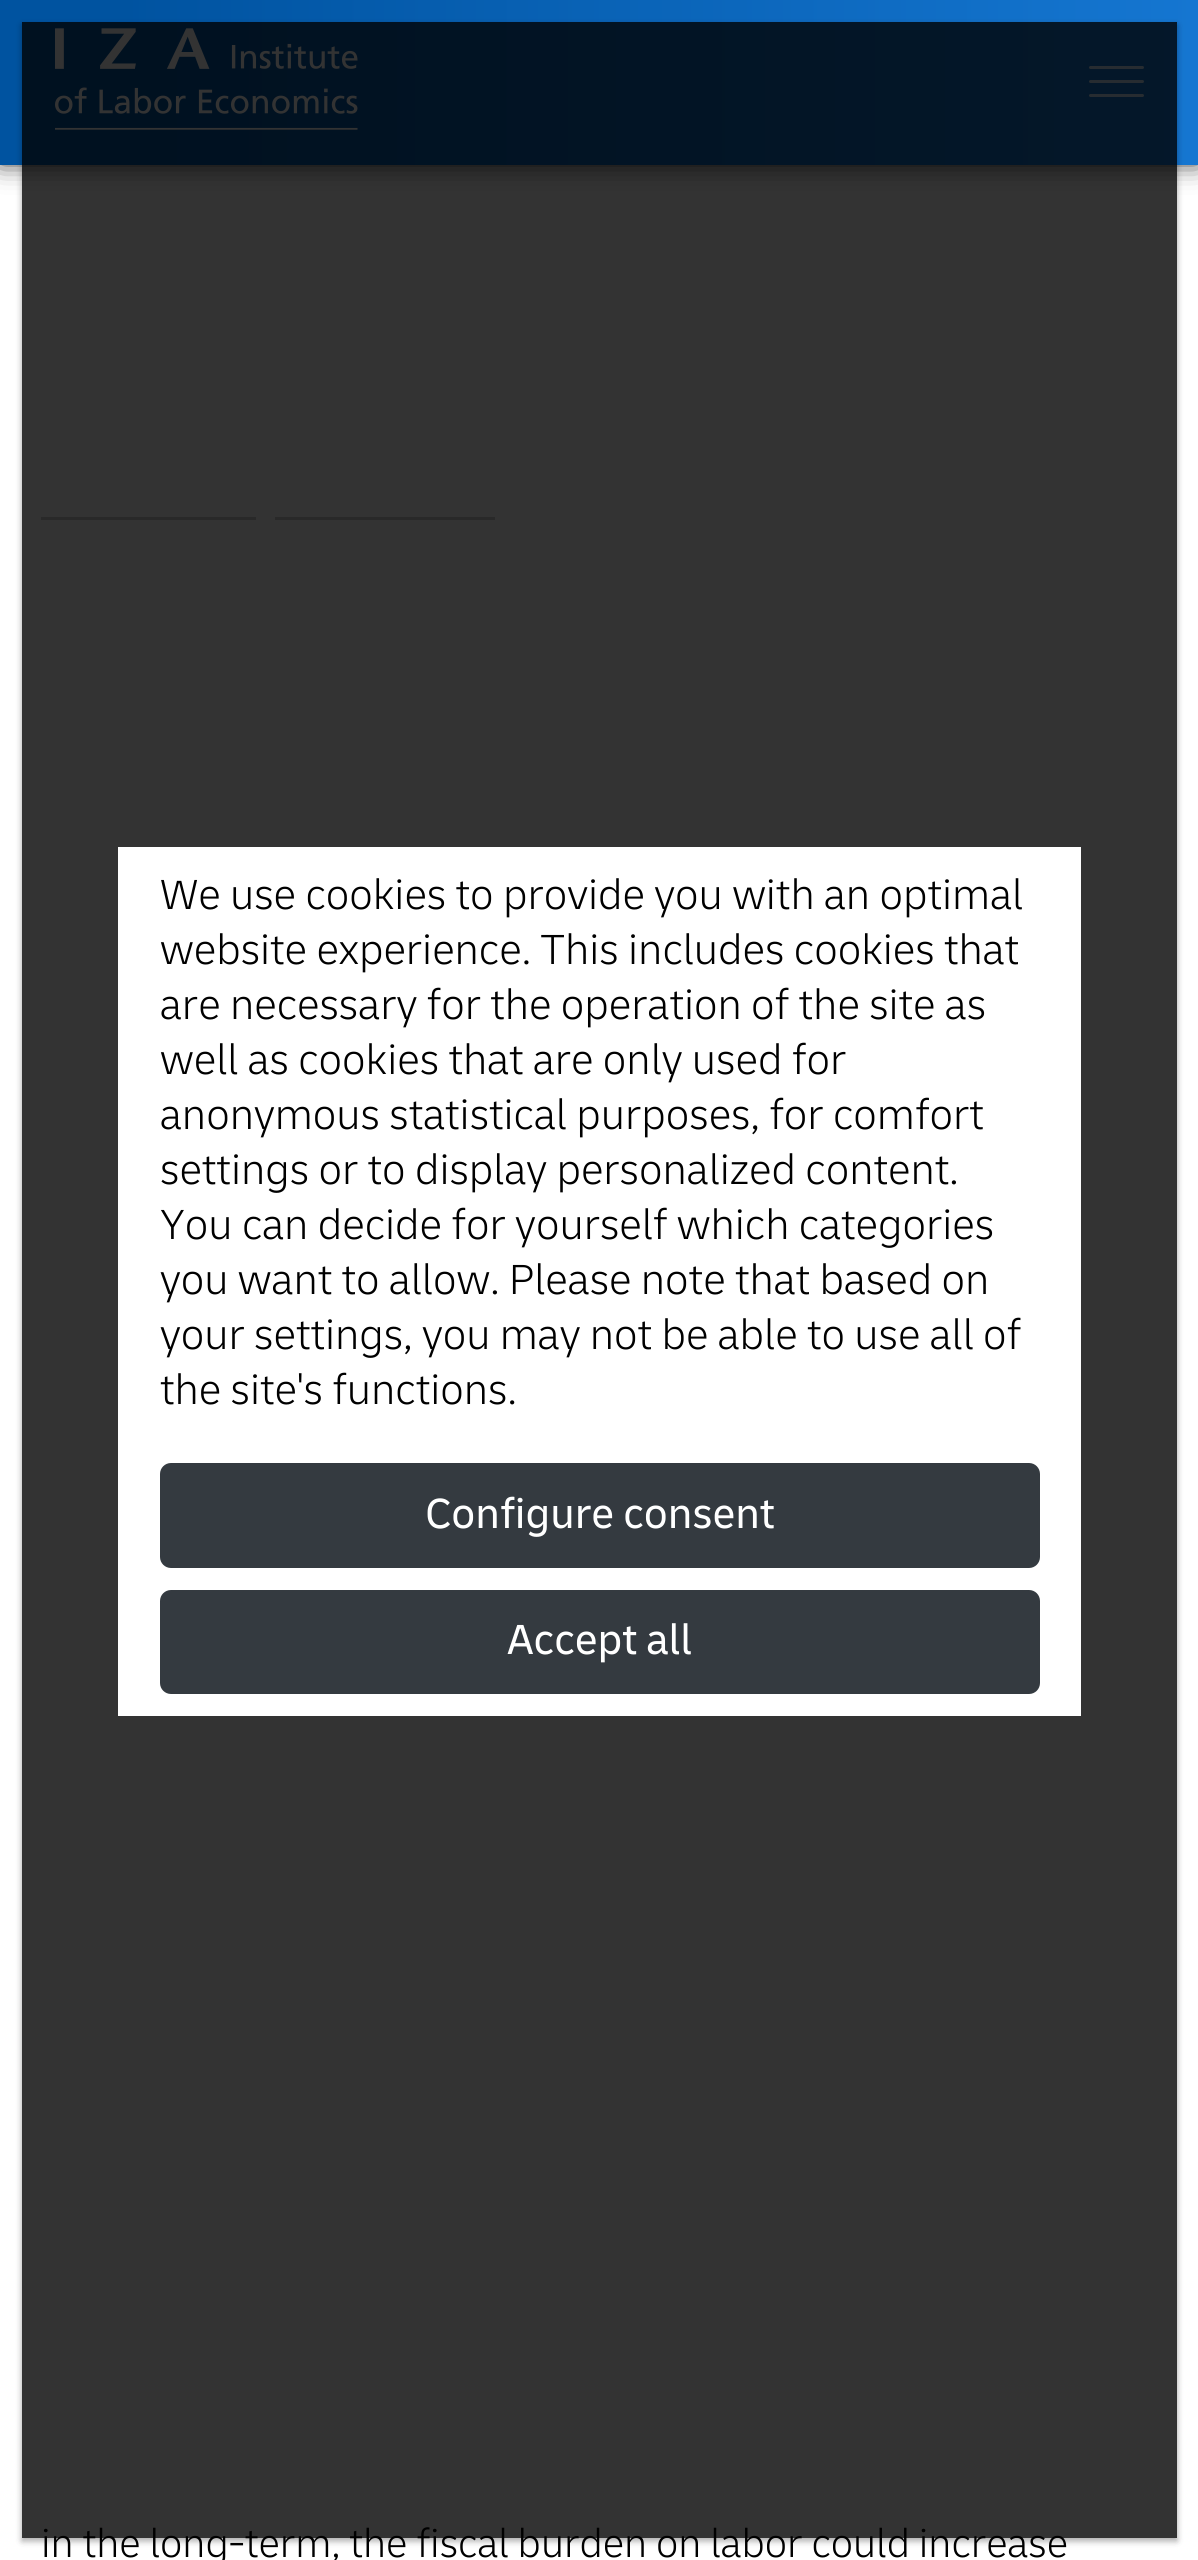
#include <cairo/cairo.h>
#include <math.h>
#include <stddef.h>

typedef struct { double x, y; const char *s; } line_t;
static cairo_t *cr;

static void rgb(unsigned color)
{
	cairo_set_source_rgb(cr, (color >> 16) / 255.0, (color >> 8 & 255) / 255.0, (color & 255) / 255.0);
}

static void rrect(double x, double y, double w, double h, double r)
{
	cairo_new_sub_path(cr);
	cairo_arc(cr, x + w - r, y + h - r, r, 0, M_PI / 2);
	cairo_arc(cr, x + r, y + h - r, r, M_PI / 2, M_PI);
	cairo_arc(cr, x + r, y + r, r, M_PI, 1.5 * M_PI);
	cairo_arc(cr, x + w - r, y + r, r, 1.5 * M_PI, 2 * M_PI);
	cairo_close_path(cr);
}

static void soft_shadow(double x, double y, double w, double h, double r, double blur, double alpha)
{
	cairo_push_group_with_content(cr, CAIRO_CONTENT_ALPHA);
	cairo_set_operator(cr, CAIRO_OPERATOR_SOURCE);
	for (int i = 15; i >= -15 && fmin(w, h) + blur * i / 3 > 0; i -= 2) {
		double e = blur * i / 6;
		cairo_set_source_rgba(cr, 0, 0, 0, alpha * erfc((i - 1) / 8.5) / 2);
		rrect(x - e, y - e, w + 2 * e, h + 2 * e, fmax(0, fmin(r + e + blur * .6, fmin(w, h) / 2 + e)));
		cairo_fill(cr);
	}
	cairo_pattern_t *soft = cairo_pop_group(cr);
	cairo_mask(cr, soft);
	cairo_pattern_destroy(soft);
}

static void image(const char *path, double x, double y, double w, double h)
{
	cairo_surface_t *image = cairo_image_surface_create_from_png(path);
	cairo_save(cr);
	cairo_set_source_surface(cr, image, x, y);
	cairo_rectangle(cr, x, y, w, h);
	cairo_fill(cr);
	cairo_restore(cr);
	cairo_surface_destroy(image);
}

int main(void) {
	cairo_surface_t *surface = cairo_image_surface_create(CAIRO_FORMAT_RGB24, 1198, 2560);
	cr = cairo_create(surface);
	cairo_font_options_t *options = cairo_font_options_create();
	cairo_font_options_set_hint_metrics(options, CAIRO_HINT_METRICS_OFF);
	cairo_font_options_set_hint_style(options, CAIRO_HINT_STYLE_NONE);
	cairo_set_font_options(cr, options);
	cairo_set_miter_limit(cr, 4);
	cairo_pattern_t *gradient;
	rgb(0xffffff);
	cairo_paint(cr);
	rgb(0x000000);
	soft_shadow(0, -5, 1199, 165, 0, 14, 1);
	gradient = cairo_pattern_create_linear(0, 83, 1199, 82);
	cairo_pattern_add_color_stop_rgba(gradient, 0.1, 0, 0.325, 0.627, 1);
	cairo_pattern_add_color_stop_rgba(gradient, 1, 0.082, 0.463, 0.82, 1);
	cairo_set_source(cr, gradient);
	cairo_pattern_destroy(gradient);
	cairo_rectangle(cr, 0, 0, 1198, 165);
	cairo_fill(cr);
	image("img/1.png", 55, 28, 303, 102);
	rgb(0xc4dcf3);
	rrect(1089, 80, 55, 3, 1.5);
	cairo_fill(cr);
	rrect(1089, 66, 55, 3, 1.5);
	cairo_fill(cr);
	rrect(1089, 94, 55, 3, 1.5);
	cairo_fill(cr);
	rgb(0xcccccc);
	cairo_rectangle(cr, 41, 517, 215, 3);
	cairo_fill(cr);
	cairo_rectangle(cr, 275, 517, 220, 3);
	cairo_fill(cr);
	cairo_save(cr);
	cairo_set_fill_rule(cr, CAIRO_FILL_RULE_EVEN_ODD);
	cairo_new_path(cr);
	cairo_move_to(cr, 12, 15);
	cairo_line_to(cr, 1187, 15);
	cairo_line_to(cr, 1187, 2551);
	cairo_line_to(cr, 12, 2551);
	cairo_close_path(cr);
	cairo_move_to(cr, 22, 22);
	cairo_line_to(cr, 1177, 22);
	cairo_line_to(cr, 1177, 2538);
	cairo_line_to(cr, 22, 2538);
	cairo_close_path(cr);
	cairo_clip(cr);
	rgb(0x000000);
	soft_shadow(22, 25, 1155, 2516, 0, 3, 0.24);
	cairo_restore(cr);
	cairo_save(cr);
	cairo_set_fill_rule(cr, CAIRO_FILL_RULE_EVEN_ODD);
	cairo_new_path(cr);
	cairo_move_to(cr, 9, 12);
	cairo_line_to(cr, 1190, 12);
	cairo_line_to(cr, 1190, 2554);
	cairo_line_to(cr, 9, 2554);
	cairo_close_path(cr);
	cairo_move_to(cr, 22, 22);
	cairo_line_to(cr, 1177, 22);
	cairo_line_to(cr, 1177, 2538);
	cairo_line_to(cr, 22, 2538);
	cairo_close_path(cr);
	cairo_clip(cr);
	rgb(0x000000);
	soft_shadow(22, 25, 1155, 2516, 0, 4, 0.12);
	cairo_restore(cr);
	cairo_select_font_face(cr, "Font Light", CAIRO_FONT_SLANT_NORMAL, CAIRO_FONT_WEIGHT_NORMAL);
	cairo_set_font_size(cr, 41.8);
	rgb(0x000000);
	cairo_move_to(cr, 41, 2557);
	cairo_show_text(cr, "in the long-term, the fiscal burden on labor could increase");
	cairo_set_source_rgba(cr, 0, 0, 0, 0.8);
	cairo_rectangle(cr, 22, 22, 1155, 2516);
	cairo_fill(cr);
	rgb(0xffffff);
	cairo_rectangle(cr, 118, 847, 963, 869);
	cairo_fill(cr);
	rgb(0x343a40);
	rrect(161.5, 1591.5, 877, 101, 9.5);
	cairo_fill_preserve(cr);
	cairo_set_line_width(cr, 3);
	cairo_stroke(cr);
	cairo_select_font_face(cr, "Font", CAIRO_FONT_SLANT_NORMAL, CAIRO_FONT_WEIGHT_NORMAL);
	cairo_set_font_size(cr, 44);
	rgb(0xffffff);
	cairo_move_to(cr, 507, 1654);
	cairo_show_text(cr, "Accept all");
	rgb(0x343a40);
	rrect(161.5, 1464.5, 877, 102, 9.5);
	cairo_fill_preserve(cr);
	cairo_stroke(cr);
	rgb(0xffffff);
	cairo_move_to(cr, 425, 1528);
	cairo_show_text(cr, "Configure consent");
	cairo_select_font_face(cr, "Font Light", CAIRO_FONT_SLANT_NORMAL, CAIRO_FONT_WEIGHT_NORMAL);
	rgb(0x000000);
	{
		static const line_t items[] = {
			{160, 1404, "the site's functions."},
			{160, 1349, "your settings, you may not be able to use all of"},
			{160, 1294, "you want to allow. Please note that based on"},
			{160, 1239, "You can decide for yourself which categories"},
			{160, 1184, "settings or to display personalized content."},
			{160, 1129, "anonymous statistical purposes, for comfort"},
			{160, 1074, "well as cookies that are only used for"},
			{160, 1019, "are necessary for the operation of the site as"},
			{160, 964, "website experience. This includes cookies that"},
			{160, 909, "We use cookies to provide you with an optimal"},
		};
		for (size_t i = 0; i < sizeof items / sizeof *items; i++) {
			cairo_move_to(cr, items[i].x, items[i].y);
			cairo_show_text(cr, items[i].s);
		}
	}
	cairo_surface_write_to_png(surface, "page.png");
	cairo_font_options_destroy(options);
	cairo_destroy(cr);
	cairo_surface_destroy(surface);
	return 0;
}
